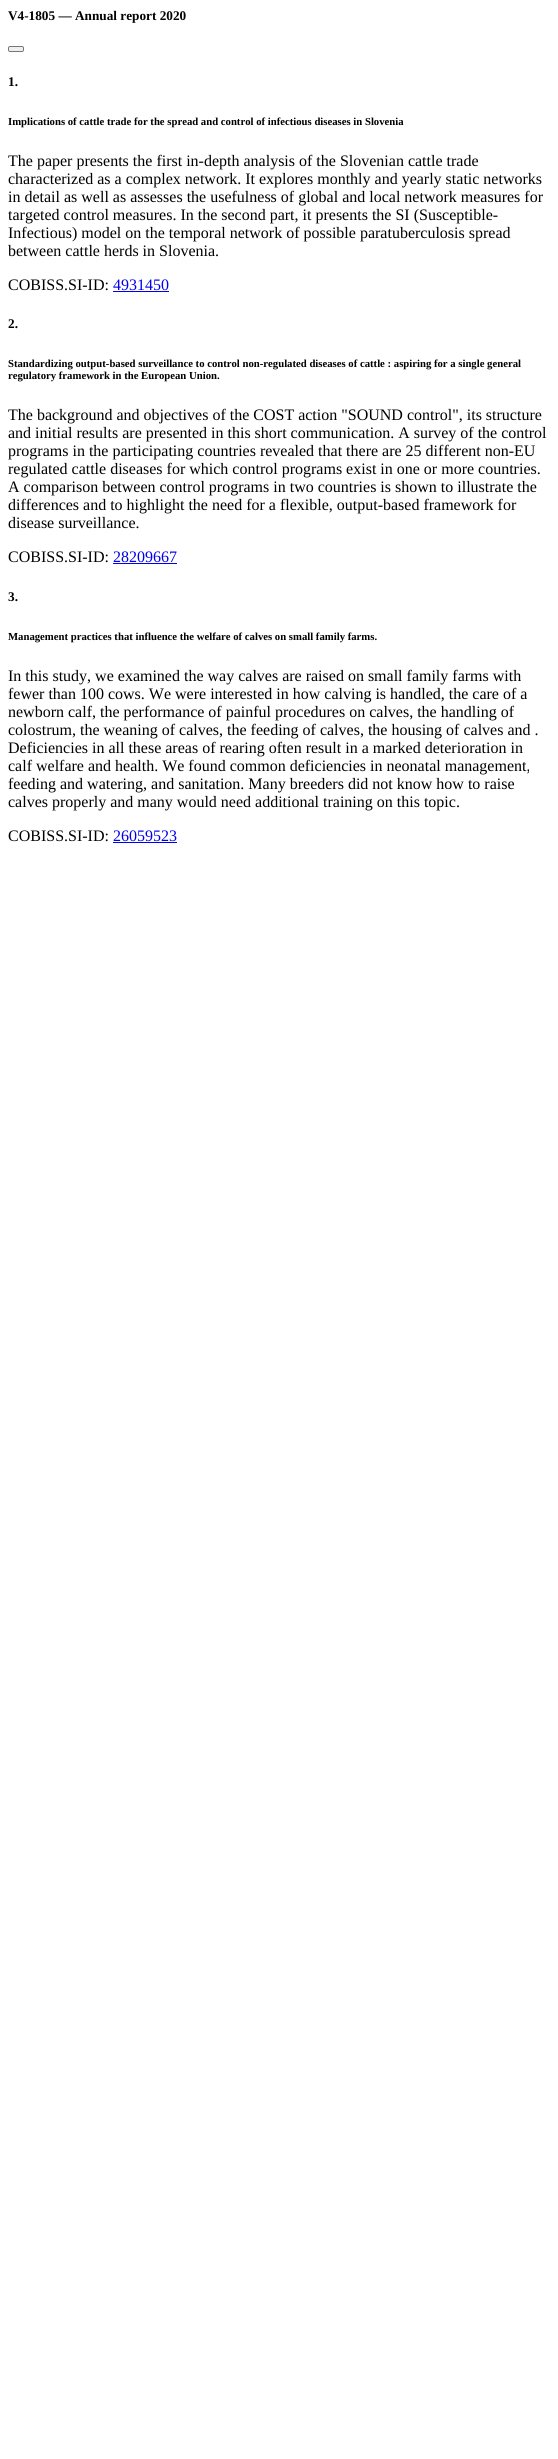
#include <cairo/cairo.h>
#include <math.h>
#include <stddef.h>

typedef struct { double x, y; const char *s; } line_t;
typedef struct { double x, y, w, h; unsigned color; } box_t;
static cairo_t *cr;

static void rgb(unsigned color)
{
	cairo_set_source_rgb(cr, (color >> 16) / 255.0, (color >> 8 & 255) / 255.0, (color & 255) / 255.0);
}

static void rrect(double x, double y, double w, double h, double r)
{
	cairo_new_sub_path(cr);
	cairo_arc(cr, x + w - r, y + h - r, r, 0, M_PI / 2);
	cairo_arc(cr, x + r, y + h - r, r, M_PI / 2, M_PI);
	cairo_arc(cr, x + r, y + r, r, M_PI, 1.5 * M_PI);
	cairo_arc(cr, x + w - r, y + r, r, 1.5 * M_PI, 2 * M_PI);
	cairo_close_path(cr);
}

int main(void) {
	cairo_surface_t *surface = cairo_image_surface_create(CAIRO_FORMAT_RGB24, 558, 2459);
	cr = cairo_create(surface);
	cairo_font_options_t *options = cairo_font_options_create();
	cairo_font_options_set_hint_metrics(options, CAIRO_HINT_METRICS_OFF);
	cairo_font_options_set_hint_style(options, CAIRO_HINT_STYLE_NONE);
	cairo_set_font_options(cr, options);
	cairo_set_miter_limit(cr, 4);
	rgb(0xffffff);
	cairo_paint(cr);
	rgb(0xefefef);
	rrect(8.5, 46.5, 15, 5, 1.5);
	cairo_fill_preserve(cr);
	rgb(0x767676);
	cairo_set_line_width(cr, 1);
	cairo_stroke(cr);
	{
		static const box_t items[] = {
			{113, 291, 56, 1, 0x0000ee},
			{113, 563, 64, 1, 0x0000ee},
			{113, 842, 64, 1, 0x0000ee},
		};
		for (size_t i = 0; i < sizeof items / sizeof *items; i++) {
			rgb(items[i].color);
			cairo_rectangle(cr, items[i].x, items[i].y, items[i].w, items[i].h);
			cairo_fill(cr);
		}
	}
	cairo_select_font_face(cr, "Liberation Serif", CAIRO_FONT_SLANT_NORMAL, CAIRO_FONT_WEIGHT_BOLD);
	cairo_set_font_size(cr, 13.25);
	rgb(0x000000);
	cairo_move_to(cr, 8, 20);
	cairo_show_text(cr, "V4-1805 — Annual report 2020");
	cairo_move_to(cr, 8, 86);
	cairo_show_text(cr, "1.");
	cairo_set_font_size(cr, 10.7);
	cairo_move_to(cr, 8, 125);
	cairo_show_text(cr, "Implications of cattle trade for the spread and control of infectious diseases in Slovenia");
	cairo_select_font_face(cr, "Liberation Serif", CAIRO_FONT_SLANT_NORMAL, CAIRO_FONT_WEIGHT_NORMAL);
	cairo_set_font_size(cr, 16);
	{
		static const line_t items[] = {
			{8, 166, "The paper presents the first in-depth analysis of the Slovenian cattle trade"},
			{8, 184, "characterized as a complex network. It explores monthly and yearly static networks"},
			{8, 202, "in detail as well as assesses the usefulness of global and local network measures for"},
			{8, 220, "targeted control measures. In the second part, it presents the SI (Susceptible-"},
			{8, 238, "Infectious) model on the temporal network of possible paratuberculosis spread"},
			{8, 256, "between cattle herds in Slovenia."},
			{8, 290, "COBISS.SI-ID:"},
		};
		for (size_t i = 0; i < sizeof items / sizeof *items; i++) {
			cairo_move_to(cr, items[i].x, items[i].y);
			cairo_show_text(cr, items[i].s);
		}
	}
	rgb(0x0000ee);
	cairo_move_to(cr, 113, 290);
	cairo_show_text(cr, "4931450");
	cairo_select_font_face(cr, "Liberation Serif", CAIRO_FONT_SLANT_NORMAL, CAIRO_FONT_WEIGHT_BOLD);
	cairo_set_font_size(cr, 13.25);
	rgb(0x000000);
	cairo_move_to(cr, 8, 328);
	cairo_show_text(cr, "2.");
	cairo_set_font_size(cr, 10.7);
	cairo_move_to(cr, 8, 367);
	cairo_show_text(cr, "Standardizing output-based surveillance to control non-regulated diseases of cattle : aspiring for a single general");
	cairo_move_to(cr, 8, 379);
	cairo_show_text(cr, "regulatory framework in the European Union.");
	cairo_select_font_face(cr, "Liberation Serif", CAIRO_FONT_SLANT_NORMAL, CAIRO_FONT_WEIGHT_NORMAL);
	cairo_set_font_size(cr, 16);
	{
		static const line_t items[] = {
			{8, 420, "The background and objectives of the COST action \"SOUND control\", its structure"},
			{8, 438, "and initial results are presented in this short communication. A survey of the control"},
			{8, 456, "programs in the participating countries revealed that there are 25 different non-EU"},
			{8, 474, "regulated cattle diseases for which control programs exist in one or more countries."},
			{8, 492, "A comparison between control programs in two countries is shown to illustrate the"},
			{8, 510, "differences and to highlight the need for a flexible, output-based framework for"},
			{8, 528, "disease surveillance."},
			{8, 562, "COBISS.SI-ID:"},
		};
		for (size_t i = 0; i < sizeof items / sizeof *items; i++) {
			cairo_move_to(cr, items[i].x, items[i].y);
			cairo_show_text(cr, items[i].s);
		}
	}
	rgb(0x0000ee);
	cairo_move_to(cr, 113, 562);
	cairo_show_text(cr, "28209667");
	cairo_select_font_face(cr, "Liberation Serif", CAIRO_FONT_SLANT_NORMAL, CAIRO_FONT_WEIGHT_BOLD);
	cairo_set_font_size(cr, 13.25);
	rgb(0x000000);
	cairo_move_to(cr, 8, 601);
	cairo_show_text(cr, "3.");
	cairo_set_font_size(cr, 10.7);
	cairo_move_to(cr, 8, 640);
	cairo_show_text(cr, "Management practices that influence the welfare of calves on small family farms.");
	cairo_select_font_face(cr, "Liberation Serif", CAIRO_FONT_SLANT_NORMAL, CAIRO_FONT_WEIGHT_NORMAL);
	cairo_set_font_size(cr, 16);
	{
		static const line_t items[] = {
			{8, 681, "In this study, we examined the way calves are raised on small family farms with"},
			{8, 699, "fewer than 100 cows. We were interested in how calving is handled, the care of a"},
			{8, 717, "newborn calf, the performance of painful procedures on calves, the handling of"},
			{8, 735, "colostrum, the weaning of calves, the feeding of calves, the housing of calves and ."},
			{8, 753, "Deficiencies in all these areas of rearing often result in a marked deterioration in"},
			{8, 771, "calf welfare and health. We found common deficiencies in neonatal management,"},
			{8, 789, "feeding and watering, and sanitation. Many breeders did not know how to raise"},
			{8, 807, "calves properly and many would need additional training on this topic."},
			{8, 841, "COBISS.SI-ID:"},
		};
		for (size_t i = 0; i < sizeof items / sizeof *items; i++) {
			cairo_move_to(cr, items[i].x, items[i].y);
			cairo_show_text(cr, items[i].s);
		}
	}
	rgb(0x0000ee);
	cairo_move_to(cr, 113, 841);
	cairo_show_text(cr, "26059523");
	cairo_surface_write_to_png(surface, "page.png");
	cairo_font_options_destroy(options);
	cairo_destroy(cr);
	cairo_surface_destroy(surface);
	return 0;
}
